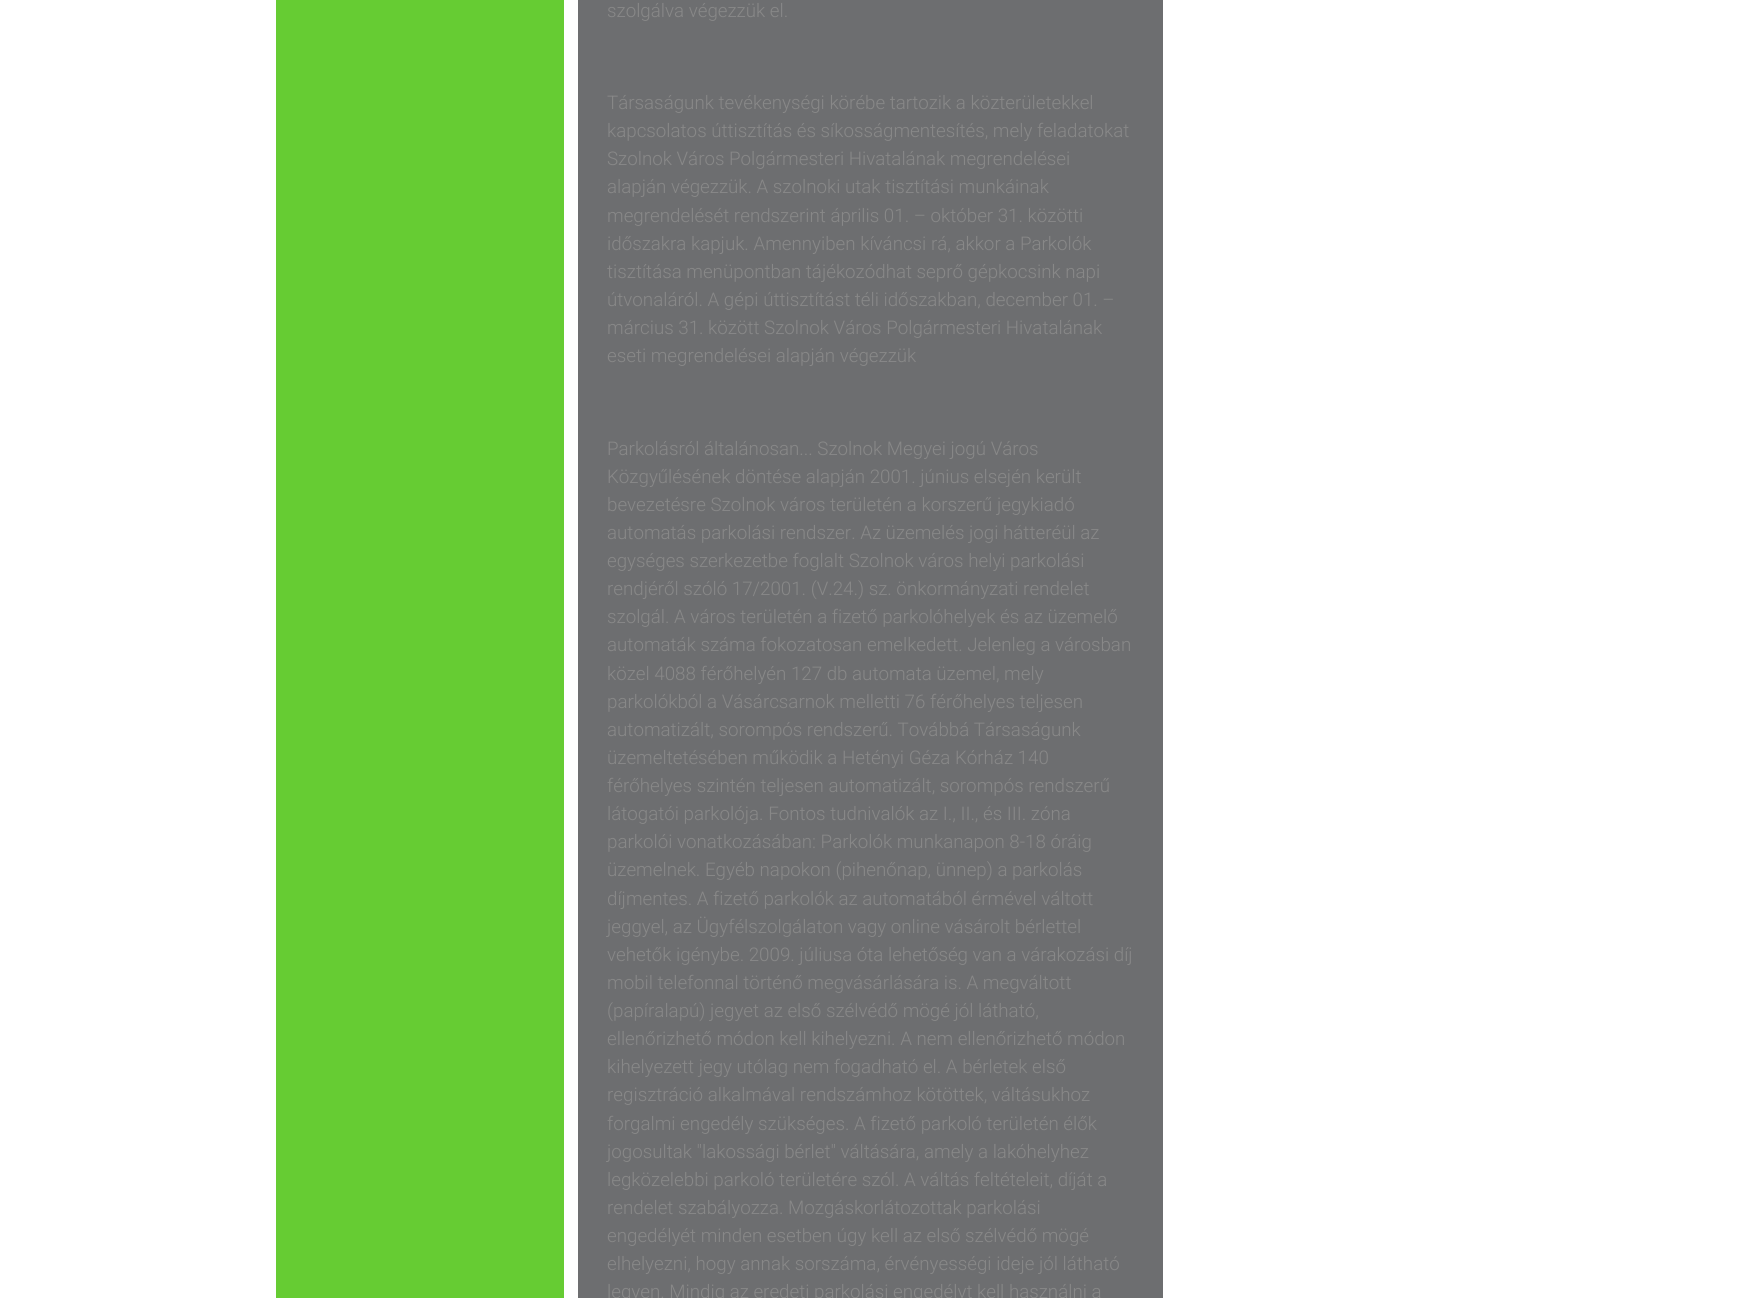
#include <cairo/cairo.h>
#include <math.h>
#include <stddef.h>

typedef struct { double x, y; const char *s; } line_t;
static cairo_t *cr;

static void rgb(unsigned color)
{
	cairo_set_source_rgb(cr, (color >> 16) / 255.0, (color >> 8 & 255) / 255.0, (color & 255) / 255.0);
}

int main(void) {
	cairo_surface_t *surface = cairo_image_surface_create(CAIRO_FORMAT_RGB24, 1738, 1298);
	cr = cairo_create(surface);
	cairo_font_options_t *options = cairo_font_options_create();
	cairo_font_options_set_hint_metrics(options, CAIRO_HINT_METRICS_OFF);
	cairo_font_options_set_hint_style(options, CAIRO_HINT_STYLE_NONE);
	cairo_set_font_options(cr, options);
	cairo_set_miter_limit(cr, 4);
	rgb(0xffffff);
	cairo_paint(cr);
	rgb(0x66cc33);
	cairo_rectangle(cr, 276, 0, 288, 1298);
	cairo_fill(cr);
	rgb(0x6d6e70);
	cairo_rectangle(cr, 578, 0, 585, 1298);
	cairo_fill(cr);
	cairo_select_font_face(cr, "Roboto Light", CAIRO_FONT_SLANT_NORMAL, CAIRO_FONT_WEIGHT_NORMAL);
	cairo_set_font_size(cr, 18.75);
	rgb(0x888888);
	{
		static const line_t items[] = {
			{607, 17, "szolgálva végezzük el."},
			{607, 109, "Társaságunk tevékenységi körébe tartozik a közterületekkel"},
			{607, 137, "kapcsolatos úttisztítás és síkosságmentesítés, mely feladatokat"},
			{607, 165, "Szolnok Város Polgármesteri Hivatalának megrendelései"},
			{607, 193, "alapján végezzük. A szolnoki utak tisztítási munkáinak"},
			{607, 222, "megrendelését rendszerint április 01. – október 31. közötti"},
			{607, 250, "időszakra kapjuk. Amennyiben kíváncsi rá, akkor a Parkolók"},
			{607, 278, "tisztítása menüpontban tájékozódhat seprő gépkocsink napi"},
			{607, 306, "útvonaláról. A gépi úttisztítást téli időszakban, december 01. –"},
			{607, 334, "március 31. között Szolnok Város Polgármesteri Hivatalának"},
			{607, 362, "eseti megrendelései alapján végezzük"},
			{607, 455, "Parkolásról általánosan... Szolnok Megyei jogú Város"},
			{607, 483, "Közgyűlésének döntése alapján 2001. június elsején került"},
			{607, 511, "bevezetésre Szolnok város területén a korszerű jegykiadó"},
			{607, 539, "automatás parkolási rendszer. Az üzemelés jogi hátteréül az"},
			{607, 567, "egységes szerkezetbe foglalt Szolnok város helyi parkolási"},
			{607, 595, "rendjéről szóló 17/2001. (V.24.) sz. önkormányzati rendelet"},
			{607, 623, "szolgál. A város területén a fizető parkolóhelyek és az üzemelő"},
			{607, 651, "automaták száma fokozatosan emelkedett. Jelenleg a városban"},
			{607, 680, "közel 4088 férőhelyén 127 db automata üzemel, mely"},
			{607, 708, "parkolókból a Vásárcsarnok melletti 76 férőhelyes teljesen"},
			{607, 736, "automatizált, sorompós rendszerű. Továbbá Társaságunk"},
			{607, 764, "üzemeltetésében működik a Hetényi Géza Kórház 140"},
			{607, 792, "férőhelyes szintén teljesen automatizált, sorompós rendszerű"},
			{607, 820, "látogatói parkolója. Fontos tudnivalók az I., II., és III. zóna"},
			{607, 848, "parkolói vonatkozásában: Parkolók munkanapon 8-18 óráig"},
			{607, 876, "üzemelnek. Egyéb napokon (pihenőnap, ünnep) a parkolás"},
			{607, 905, "díjmentes. A fizető parkolók az automatából érmével váltott"},
			{607, 933, "jeggyel, az Ügyfélszolgálaton vagy online vásárolt bérlettel"},
			{607, 961, "vehetők igénybe. 2009. júliusa óta lehetőség van a várakozási díj"},
			{607, 989, "mobil telefonnal történő megvásárlására is. A megváltott"},
			{607, 1017, "(papíralapú) jegyet az első szélvédő mögé jól látható,"},
			{607, 1045, "ellenőrizhető módon kell kihelyezni. A nem ellenőrizhető módon"},
			{607, 1073, "kihelyezett jegy utólag nem fogadható el. A bérletek első"},
			{607, 1101, "regisztráció alkalmával rendszámhoz kötöttek, váltásukhoz"},
			{607, 1130, "forgalmi engedély szükséges. A fizető parkoló területén élők"},
			{607, 1158, "jogosultak \"lakossági bérlet\" váltására, amely a lakóhelyhez"},
			{607, 1186, "legközelebbi parkoló területére szól. A váltás feltételeit, díját a"},
			{607, 1214, "rendelet szabályozza. Mozgáskorlátozottak parkolási"},
			{607, 1242, "engedélyét minden esetben úgy kell az első szélvédő mögé"},
			{607, 1270, "elhelyezni, hogy annak sorszáma, érvényességi ideje jól látható"},
			{607, 1298, "legyen. Mindig az eredeti parkolási engedélyt kell használni a"},
		};
		for (size_t i = 0; i < sizeof items / sizeof *items; i++) {
			cairo_move_to(cr, items[i].x, items[i].y);
			cairo_show_text(cr, items[i].s);
		}
	}
	cairo_surface_write_to_png(surface, "page.png");
	cairo_font_options_destroy(options);
	cairo_destroy(cr);
	cairo_surface_destroy(surface);
	return 0;
}
